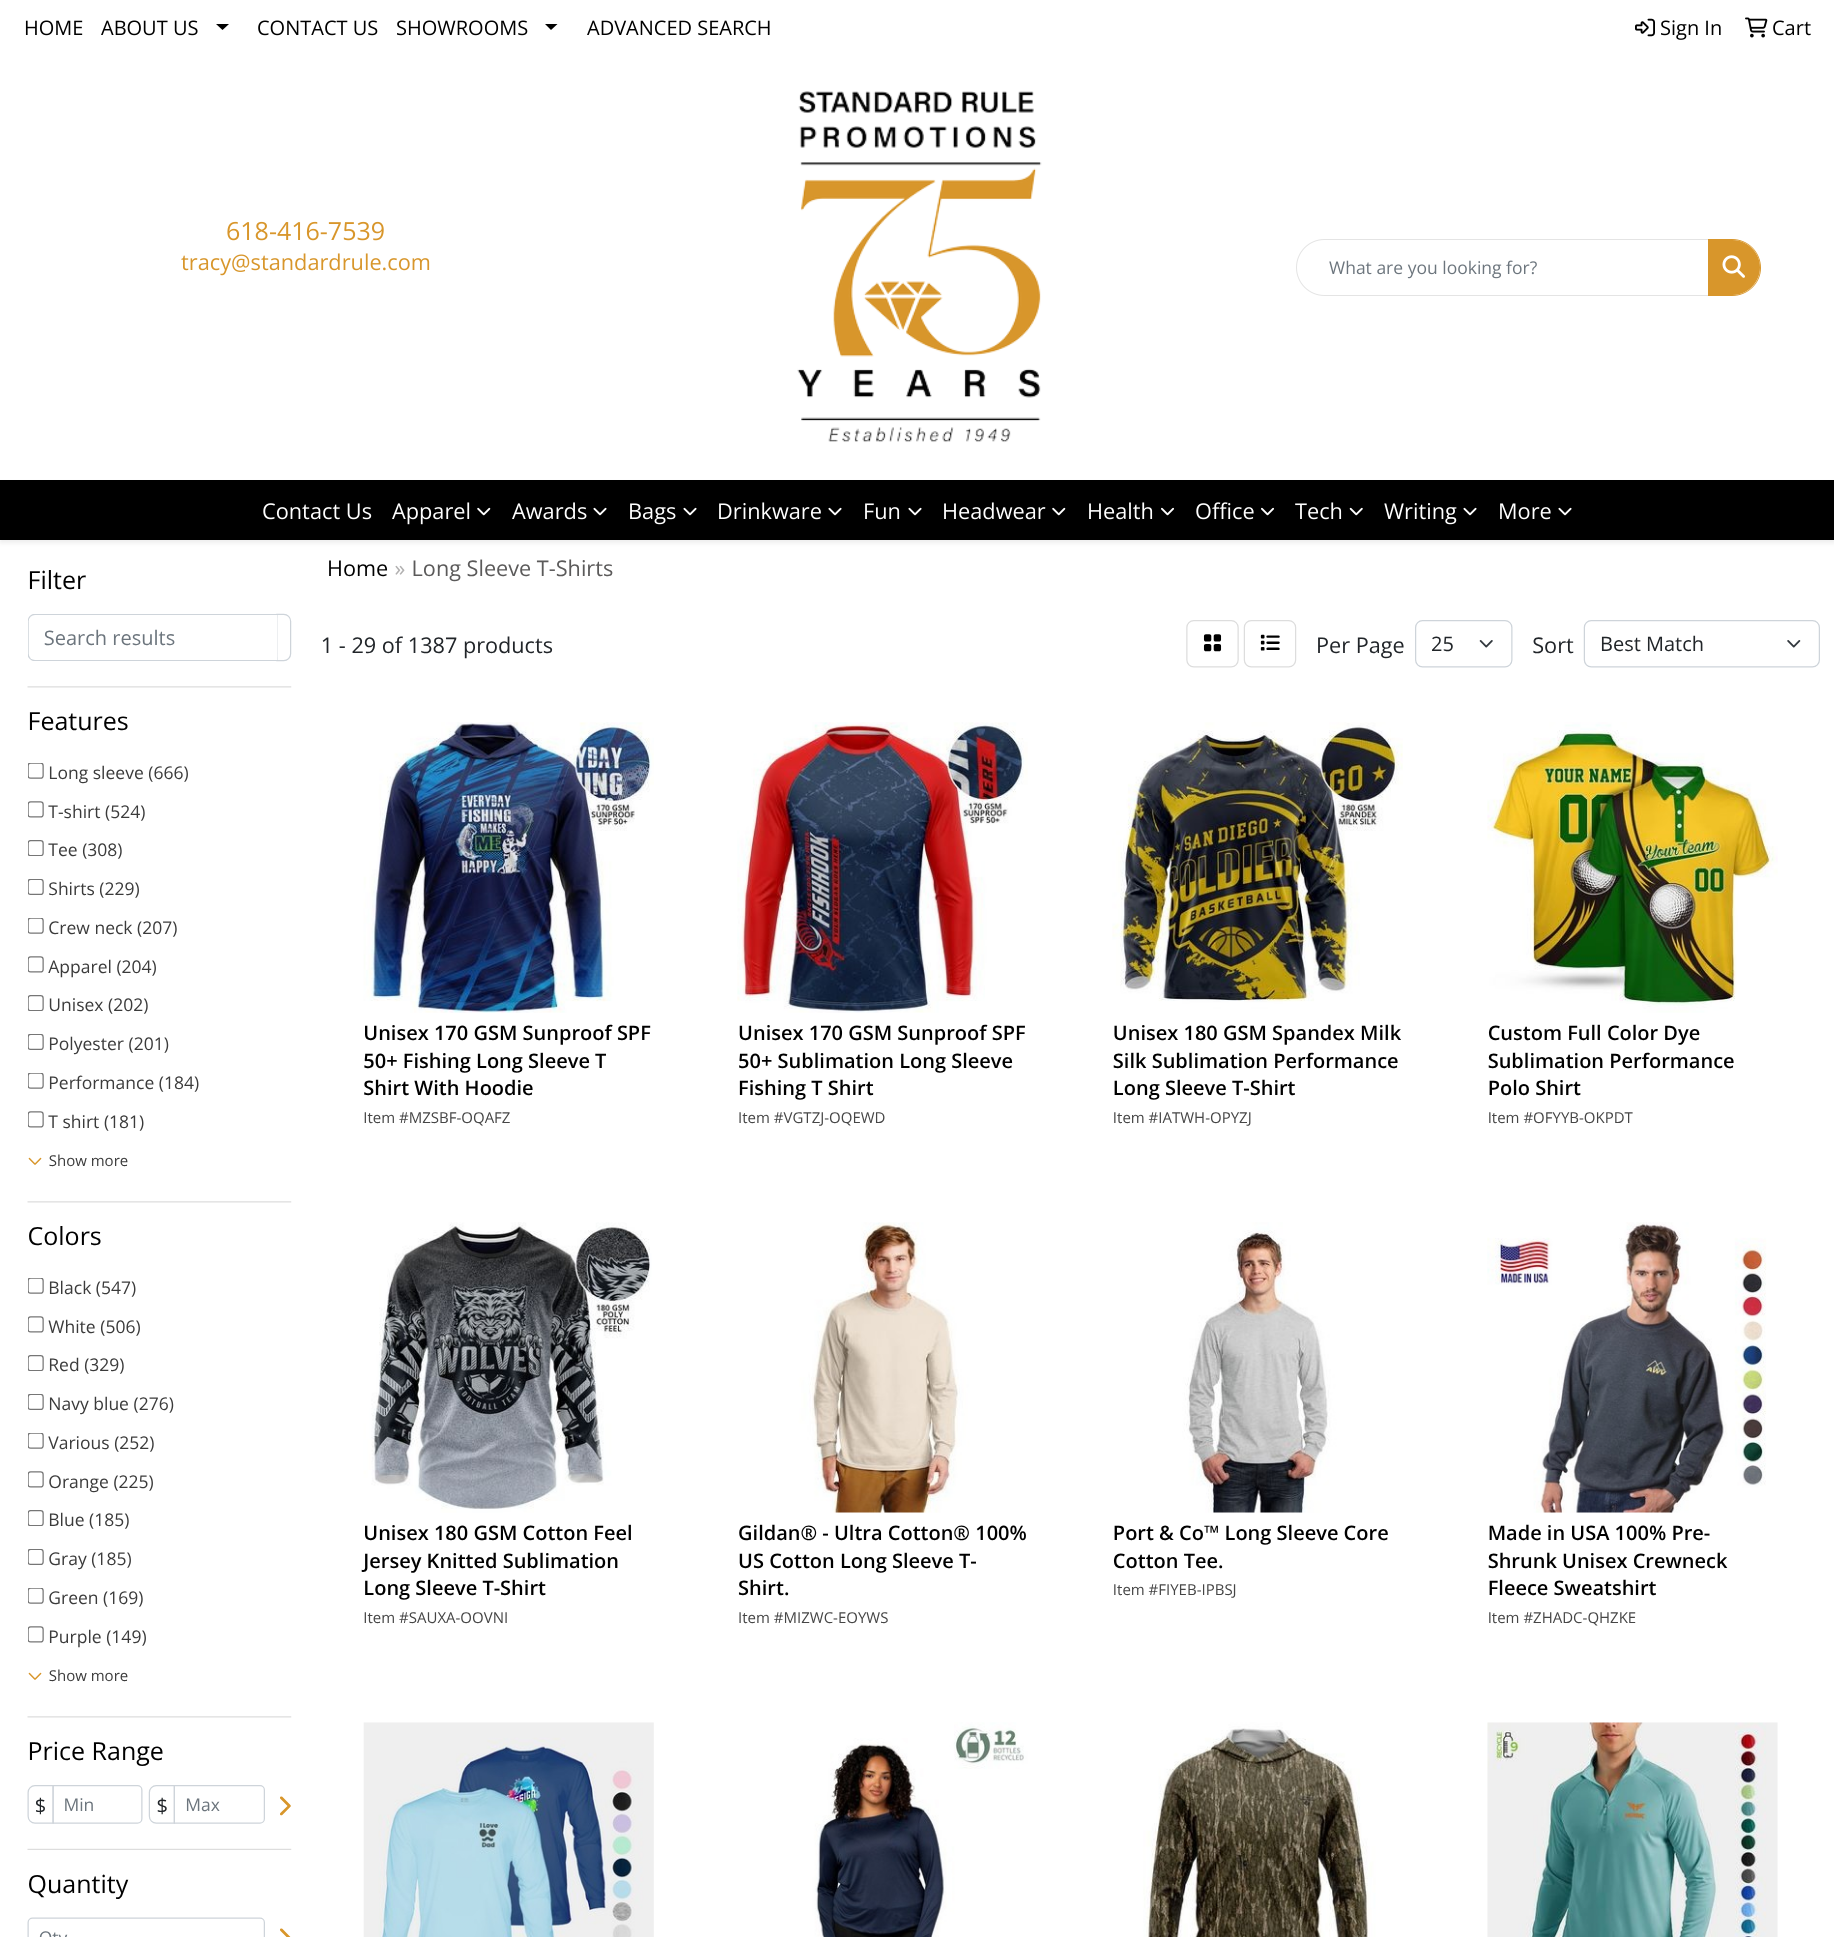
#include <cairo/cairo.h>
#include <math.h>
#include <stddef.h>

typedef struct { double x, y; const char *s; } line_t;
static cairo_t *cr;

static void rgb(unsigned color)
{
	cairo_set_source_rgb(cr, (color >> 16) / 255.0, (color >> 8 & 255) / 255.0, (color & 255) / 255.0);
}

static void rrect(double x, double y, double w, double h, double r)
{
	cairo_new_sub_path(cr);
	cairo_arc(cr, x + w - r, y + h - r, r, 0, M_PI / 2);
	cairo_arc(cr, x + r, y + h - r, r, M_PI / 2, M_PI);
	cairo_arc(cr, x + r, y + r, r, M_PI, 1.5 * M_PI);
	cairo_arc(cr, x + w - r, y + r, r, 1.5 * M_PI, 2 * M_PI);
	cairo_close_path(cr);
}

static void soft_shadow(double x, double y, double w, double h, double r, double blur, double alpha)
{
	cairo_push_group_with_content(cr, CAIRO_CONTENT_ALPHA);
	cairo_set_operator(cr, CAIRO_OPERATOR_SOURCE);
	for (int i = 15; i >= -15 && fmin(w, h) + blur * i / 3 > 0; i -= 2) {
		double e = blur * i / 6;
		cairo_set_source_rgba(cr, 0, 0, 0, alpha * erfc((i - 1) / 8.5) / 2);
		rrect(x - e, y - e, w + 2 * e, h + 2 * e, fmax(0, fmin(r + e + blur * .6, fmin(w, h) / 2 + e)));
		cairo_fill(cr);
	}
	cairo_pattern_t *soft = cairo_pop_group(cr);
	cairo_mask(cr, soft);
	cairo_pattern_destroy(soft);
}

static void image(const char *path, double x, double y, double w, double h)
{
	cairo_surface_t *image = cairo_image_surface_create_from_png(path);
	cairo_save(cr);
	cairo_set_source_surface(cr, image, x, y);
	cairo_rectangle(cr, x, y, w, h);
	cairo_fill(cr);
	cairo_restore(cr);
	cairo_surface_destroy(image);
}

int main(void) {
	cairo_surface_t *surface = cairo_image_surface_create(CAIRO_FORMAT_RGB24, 1834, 1937);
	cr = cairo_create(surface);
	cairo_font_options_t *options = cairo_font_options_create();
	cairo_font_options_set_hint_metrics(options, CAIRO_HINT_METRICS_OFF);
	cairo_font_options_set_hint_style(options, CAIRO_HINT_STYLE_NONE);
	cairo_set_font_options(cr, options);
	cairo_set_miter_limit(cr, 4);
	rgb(0xffffff);
	cairo_paint(cr);
	rgb(0x000000);
	cairo_new_path(cr);
	cairo_move_to(cr, 216, 24);
	cairo_line_to(cr, 229, 24);
	cairo_line_to(cr, 222.5, 30);
	cairo_close_path(cr);
	cairo_fill(cr);
	cairo_new_path(cr);
	cairo_move_to(cr, 545, 24);
	cairo_line_to(cr, 557.5, 24);
	cairo_line_to(cr, 551, 30);
	cairo_close_path(cr);
	cairo_fill(cr);
	image("img/1.png", 1635, 18, 20, 19);
	image("img/2.png", 1745, 17, 23, 21);
	image("img/3.png", 797, 91, 245, 352);
	cairo_new_path(cr);
	cairo_move_to(cr, 1324.5, 239.5);
	cairo_line_to(cr, 1708.5, 239.5);
	cairo_line_to(cr, 1708.5, 295.5);
	cairo_line_to(cr, 1324.5, 295.5);
	cairo_curve_to(cr, 1309, 295.5, 1296.5, 283, 1296.5, 267.5);
	cairo_curve_to(cr, 1296.5, 252, 1309, 239.5, 1324.5, 239.5);
	cairo_close_path(cr);
	rgb(0xe4e4e4);
	cairo_set_line_width(cr, 1);
	cairo_stroke(cr);
	rgb(0xd8962b);
	cairo_new_path(cr);
	cairo_move_to(cr, 1708, 240);
	cairo_line_to(cr, 1732.5, 240);
	cairo_curve_to(cr, 1747.5, 240, 1760, 252.5, 1760, 267.5);
	cairo_curve_to(cr, 1760, 282.5, 1747.5, 295, 1732.5, 295);
	cairo_line_to(cr, 1708, 295);
	cairo_close_path(cr);
	cairo_fill(cr);
	cairo_set_fill_rule(cr, CAIRO_FILL_RULE_EVEN_ODD);
	cairo_new_path(cr);
	cairo_move_to(cr, 1708, 239);
	cairo_line_to(cr, 1732, 239);
	cairo_curve_to(cr, 1748, 239, 1761, 252, 1761, 268);
	cairo_curve_to(cr, 1761, 283, 1748, 296, 1732, 296);
	cairo_line_to(cr, 1708, 296);
	cairo_close_path(cr);
	cairo_move_to(cr, 1708, 240);
	cairo_line_to(cr, 1732, 240);
	cairo_curve_to(cr, 1748, 240, 1760, 252, 1760, 268);
	cairo_curve_to(cr, 1760, 283, 1748, 295, 1732, 295);
	cairo_line_to(cr, 1708, 295);
	cairo_close_path(cr);
	cairo_fill(cr);
	image("img/4.png", 1722, 255, 23, 23);
	rgb(0x000000);
	soft_shadow(0, 483, 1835, 60, 0, 2.5, 0.07);
	rgb(0x000000);
	cairo_rectangle(cr, 0, 480, 1834, 60);
	cairo_fill(cr);
	image("img/5.png", 477, 507, 14, 9);
	image("img/6.png", 593, 507, 14, 9);
	image("img/6.png", 683, 507, 14, 9);
	image("img/6.png", 828, 507, 14, 9);
	image("img/6.png", 908, 507, 14, 9);
	image("img/5.png", 1052, 507, 14, 9);
	image("img/7.png", 1161, 507, 13, 9);
	image("img/7.png", 1261, 507, 13, 9);
	image("img/8.png", 1349, 507, 14, 9);
	image("img/6.png", 1463, 507, 14, 9);
	image("img/6.png", 1558, 507, 14, 9);
	image("img/9.png", 27, 559, 1793, 1378);
	cairo_select_font_face(cr, "Open Sans", CAIRO_FONT_SLANT_NORMAL, CAIRO_FONT_WEIGHT_NORMAL);
	cairo_set_font_size(cr, 20);
	{
		static const line_t items[] = {
			{24, 35, "HOME"},
			{101, 35, "ABOUT US"},
			{257, 35, "CONTACT US"},
			{396, 35, "SHOWROOMS"},
			{587, 35, "ADVANCED SEARCH"},
			{1660, 35, "Sign In"},
			{1772, 35, "Cart"},
		};
		for (size_t i = 0; i < sizeof items / sizeof *items; i++) {
			cairo_move_to(cr, items[i].x, items[i].y);
			cairo_show_text(cr, items[i].s);
		}
	}
	cairo_set_font_size(cr, 25);
	rgb(0xd8962b);
	cairo_move_to(cr, 226, 240);
	cairo_show_text(cr, "618-416-7539");
	cairo_set_font_size(cr, 21.75);
	cairo_move_to(cr, 181, 270);
	cairo_show_text(cr, "tracy@standardrule.com");
	cairo_set_font_size(cr, 17.5);
	rgb(0x6c757d);
	cairo_move_to(cr, 1329, 274);
	cairo_show_text(cr, "What are you looking for?");
	cairo_set_font_size(cr, 21.75);
	rgb(0xffffff);
	{
		static const line_t items[] = {
			{262, 519, "Contact Us"},
			{392, 519, "Apparel"},
			{512, 519, "Awards"},
			{628, 519, "Bags"},
			{717, 519, "Drinkware"},
			{863, 519, "Fun"},
			{942, 519, "Headwear"},
			{1087, 519, "Health"},
			{1195, 519, "Office"},
			{1295, 519, "Tech"},
			{1384, 519, "Writing"},
			{1498, 519, "More"},
		};
		for (size_t i = 0; i < sizeof items / sizeof *items; i++) {
			cairo_move_to(cr, items[i].x, items[i].y);
			cairo_show_text(cr, items[i].s);
		}
	}
	cairo_surface_write_to_png(surface, "page.png");
	cairo_font_options_destroy(options);
	cairo_destroy(cr);
	cairo_surface_destroy(surface);
	return 0;
}
